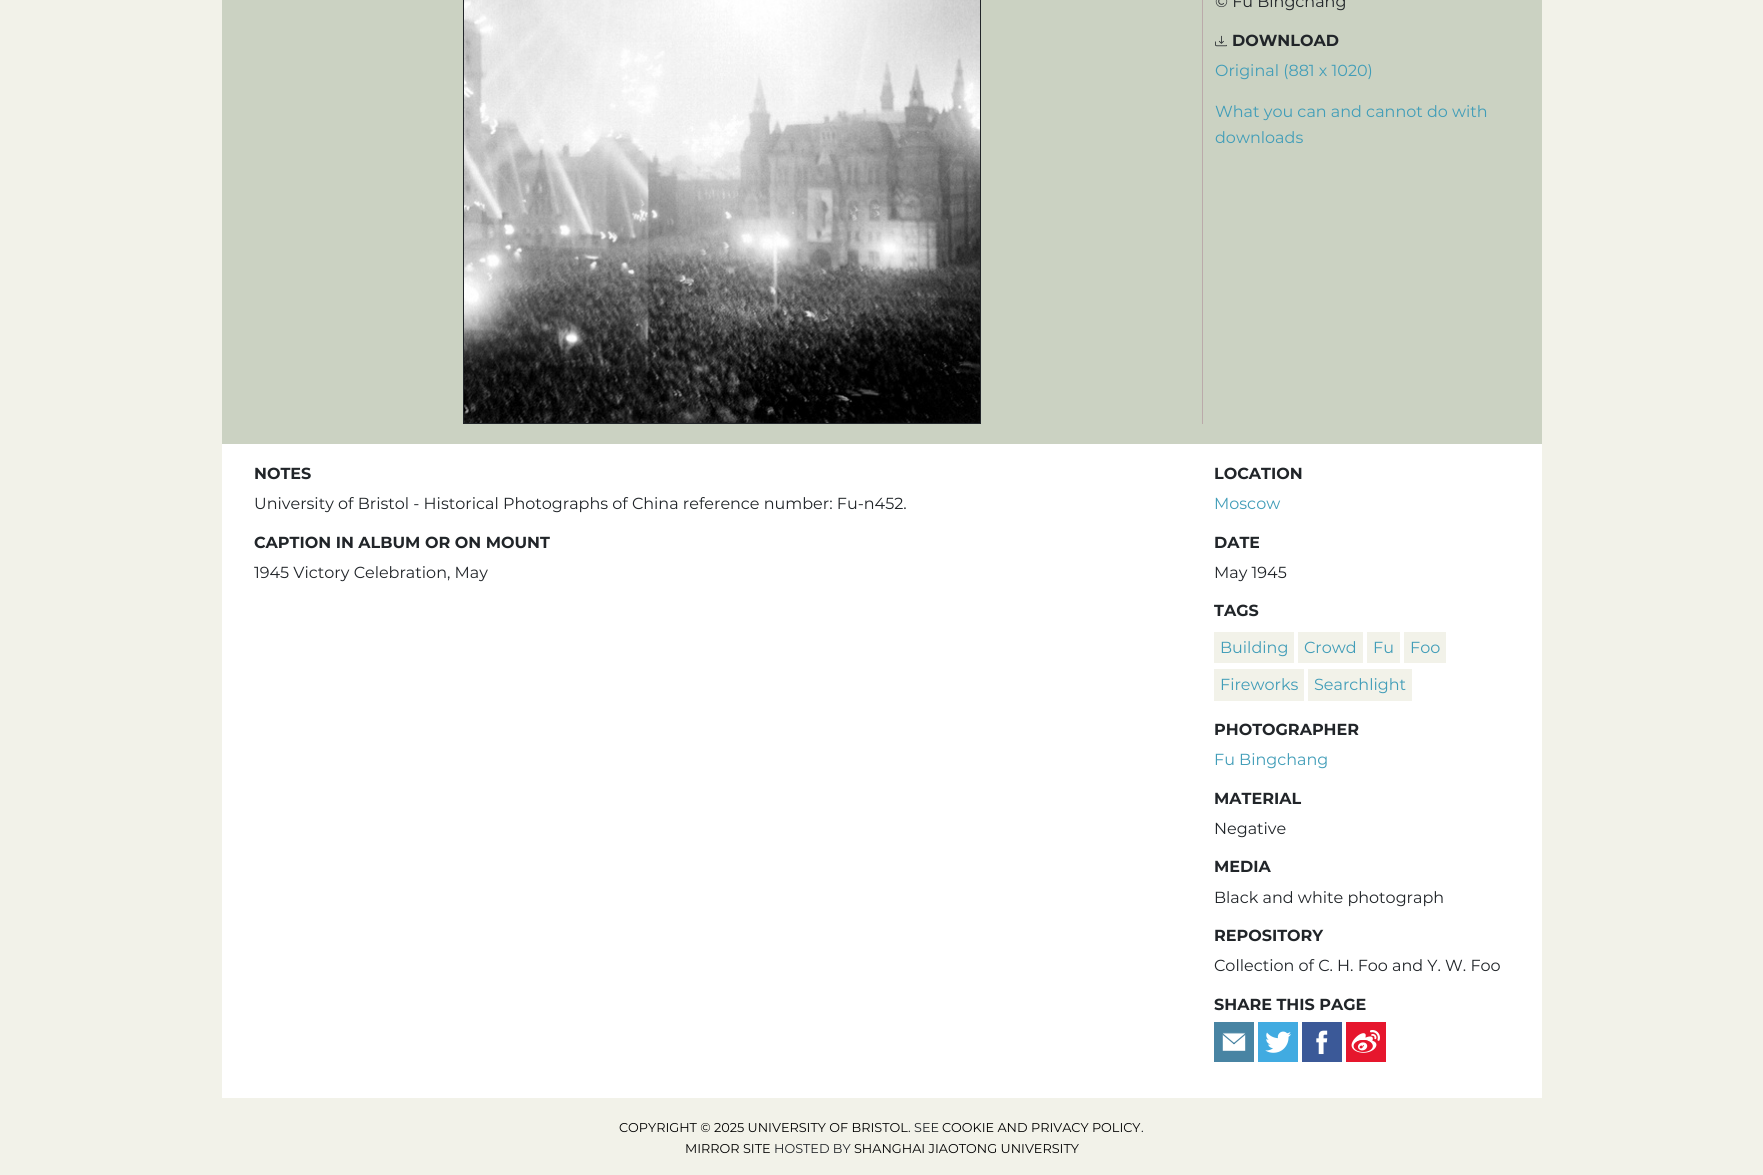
#include <cairo/cairo.h>
#include <math.h>
#include <stddef.h>

typedef struct { double x, y; const char *s; } line_t;
typedef struct { double x, y, w, h; unsigned color; } box_t;
static cairo_t *cr;

static void rgb(unsigned color)
{
	cairo_set_source_rgb(cr, (color >> 16) / 255.0, (color >> 8 & 255) / 255.0, (color & 255) / 255.0);
}

static void image(const char *path, double x, double y, double w, double h)
{
	cairo_surface_t *image = cairo_image_surface_create_from_png(path);
	cairo_save(cr);
	cairo_set_source_surface(cr, image, x, y);
	cairo_rectangle(cr, x, y, w, h);
	cairo_fill(cr);
	cairo_restore(cr);
	cairo_surface_destroy(image);
}

int main(void) {
	cairo_surface_t *surface = cairo_image_surface_create(CAIRO_FORMAT_RGB24, 1763, 1175);
	cr = cairo_create(surface);
	cairo_font_options_t *options = cairo_font_options_create();
	cairo_font_options_set_hint_metrics(options, CAIRO_HINT_METRICS_OFF);
	cairo_font_options_set_hint_style(options, CAIRO_HINT_STYLE_NONE);
	cairo_set_font_options(cr, options);
	cairo_set_miter_limit(cr, 4);
	rgb(0xf2f2e9);
	cairo_paint(cr);
	rgb(0xffffff);
	cairo_rectangle(cr, 222, 444, 1320, 654);
	cairo_fill(cr);
	rgb(0xcbd2c2);
	cairo_rectangle(cr, 222, 0, 1320, 444);
	cairo_fill(cr);
	cairo_rectangle(cr, 463.5, -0.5, 517, 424);
	rgb(0x212529);
	cairo_set_line_width(cr, 1);
	cairo_stroke(cr);
	image("img/1.png", 464, 0, 516, 423);
	rgb(0xbbaaaa);
	cairo_rectangle(cr, 1202, 0, 1, 424);
	cairo_fill(cr);
	image("img/2.png", 1215, 35, 12, 12);
	{
		static const box_t items[] = {
			{1214, 632, 80, 31, 0xf2f2e9},
			{1298, 632, 65, 31, 0xf2f2e9},
			{1367, 632, 33, 31, 0xf2f2e9},
			{1404, 632, 42, 31, 0xf2f2e9},
			{1214, 669, 90, 32, 0xf2f2e9},
			{1308, 669, 104, 32, 0xf2f2e9},
		};
		for (size_t i = 0; i < sizeof items / sizeof *items; i++) {
			rgb(items[i].color);
			cairo_rectangle(cr, items[i].x, items[i].y, items[i].w, items[i].h);
			cairo_fill(cr);
		}
	}
	image("img/3.png", 1214, 1022, 40, 40);
	image("img/4.png", 1258, 1022, 40, 40);
	image("img/5.png", 1302, 1022, 40, 40);
	image("img/6.png", 1346, 1022, 40, 40);
	cairo_select_font_face(cr, "Montserrat", CAIRO_FONT_SLANT_NORMAL, CAIRO_FONT_WEIGHT_NORMAL);
	cairo_set_font_size(cr, 16);
	rgb(0x212529);
	cairo_move_to(cr, 1215, 7);
	cairo_show_text(cr, "© Fu Bingchang");
	cairo_select_font_face(cr, "Montserrat", CAIRO_FONT_SLANT_NORMAL, CAIRO_FONT_WEIGHT_BOLD);
	cairo_move_to(cr, 1232, 46);
	cairo_show_text(cr, "DOWNLOAD");
	cairo_select_font_face(cr, "Montserrat", CAIRO_FONT_SLANT_NORMAL, CAIRO_FONT_WEIGHT_NORMAL);
	rgb(0x419db8);
	{
		static const line_t items[] = {
			{1215, 76, "Original (881 x 1020)"},
			{1215, 117, "What you can and cannot do with"},
			{1215, 143, "downloads"},
		};
		for (size_t i = 0; i < sizeof items / sizeof *items; i++) {
			cairo_move_to(cr, items[i].x, items[i].y);
			cairo_show_text(cr, items[i].s);
		}
	}
	cairo_select_font_face(cr, "Montserrat", CAIRO_FONT_SLANT_NORMAL, CAIRO_FONT_WEIGHT_BOLD);
	rgb(0x212529);
	cairo_move_to(cr, 254, 479);
	cairo_show_text(cr, "NOTES");
	cairo_select_font_face(cr, "Montserrat", CAIRO_FONT_SLANT_NORMAL, CAIRO_FONT_WEIGHT_NORMAL);
	cairo_move_to(cr, 254, 509);
	cairo_show_text(cr, "University of Bristol - Historical Photographs of China reference number: Fu-n452.");
	cairo_select_font_face(cr, "Montserrat", CAIRO_FONT_SLANT_NORMAL, CAIRO_FONT_WEIGHT_BOLD);
	cairo_move_to(cr, 254, 548);
	cairo_show_text(cr, "CAPTION IN ALBUM OR ON MOUNT");
	cairo_select_font_face(cr, "Montserrat", CAIRO_FONT_SLANT_NORMAL, CAIRO_FONT_WEIGHT_NORMAL);
	cairo_move_to(cr, 254, 578);
	cairo_show_text(cr, "1945 Victory Celebration, May");
	cairo_select_font_face(cr, "Montserrat", CAIRO_FONT_SLANT_NORMAL, CAIRO_FONT_WEIGHT_BOLD);
	cairo_move_to(cr, 1214, 479);
	cairo_show_text(cr, "LOCATION");
	cairo_select_font_face(cr, "Montserrat", CAIRO_FONT_SLANT_NORMAL, CAIRO_FONT_WEIGHT_NORMAL);
	rgb(0x419db8);
	cairo_move_to(cr, 1214, 509);
	cairo_show_text(cr, "Moscow");
	cairo_select_font_face(cr, "Montserrat", CAIRO_FONT_SLANT_NORMAL, CAIRO_FONT_WEIGHT_BOLD);
	rgb(0x212529);
	cairo_move_to(cr, 1214, 548);
	cairo_show_text(cr, "DATE");
	cairo_select_font_face(cr, "Montserrat", CAIRO_FONT_SLANT_NORMAL, CAIRO_FONT_WEIGHT_NORMAL);
	cairo_move_to(cr, 1214, 578);
	cairo_show_text(cr, "May 1945");
	cairo_select_font_face(cr, "Montserrat", CAIRO_FONT_SLANT_NORMAL, CAIRO_FONT_WEIGHT_BOLD);
	cairo_move_to(cr, 1214, 616);
	cairo_show_text(cr, "TAGS");
	cairo_select_font_face(cr, "Montserrat", CAIRO_FONT_SLANT_NORMAL, CAIRO_FONT_WEIGHT_NORMAL);
	rgb(0x419db8);
	{
		static const line_t items[] = {
			{1220, 653, "Building"},
			{1304, 653, "Crowd"},
			{1373, 653, "Fu"},
			{1410, 653, "Foo"},
			{1220, 690, "Fireworks"},
			{1314, 690, "Searchlight"},
		};
		for (size_t i = 0; i < sizeof items / sizeof *items; i++) {
			cairo_move_to(cr, items[i].x, items[i].y);
			cairo_show_text(cr, items[i].s);
		}
	}
	cairo_select_font_face(cr, "Montserrat", CAIRO_FONT_SLANT_NORMAL, CAIRO_FONT_WEIGHT_BOLD);
	rgb(0x212529);
	cairo_move_to(cr, 1214, 735);
	cairo_show_text(cr, "PHOTOGRAPHER");
	cairo_select_font_face(cr, "Montserrat", CAIRO_FONT_SLANT_NORMAL, CAIRO_FONT_WEIGHT_NORMAL);
	rgb(0x419db8);
	cairo_move_to(cr, 1214, 765);
	cairo_show_text(cr, "Fu Bingchang");
	cairo_select_font_face(cr, "Montserrat", CAIRO_FONT_SLANT_NORMAL, CAIRO_FONT_WEIGHT_BOLD);
	rgb(0x212529);
	cairo_move_to(cr, 1214, 804);
	cairo_show_text(cr, "MATERIAL");
	cairo_select_font_face(cr, "Montserrat", CAIRO_FONT_SLANT_NORMAL, CAIRO_FONT_WEIGHT_NORMAL);
	cairo_move_to(cr, 1214, 834);
	cairo_show_text(cr, "Negative");
	cairo_select_font_face(cr, "Montserrat", CAIRO_FONT_SLANT_NORMAL, CAIRO_FONT_WEIGHT_BOLD);
	cairo_move_to(cr, 1214, 872);
	cairo_show_text(cr, "MEDIA");
	cairo_select_font_face(cr, "Montserrat", CAIRO_FONT_SLANT_NORMAL, CAIRO_FONT_WEIGHT_NORMAL);
	cairo_move_to(cr, 1214, 903);
	cairo_show_text(cr, "Black and white photograph");
	cairo_select_font_face(cr, "Montserrat", CAIRO_FONT_SLANT_NORMAL, CAIRO_FONT_WEIGHT_BOLD);
	cairo_move_to(cr, 1214, 941);
	cairo_show_text(cr, "REPOSITORY");
	cairo_select_font_face(cr, "Montserrat", CAIRO_FONT_SLANT_NORMAL, CAIRO_FONT_WEIGHT_NORMAL);
	cairo_move_to(cr, 1214, 971);
	cairo_show_text(cr, "Collection of C. H. Foo and Y. W. Foo");
	cairo_select_font_face(cr, "Montserrat", CAIRO_FONT_SLANT_NORMAL, CAIRO_FONT_WEIGHT_BOLD);
	cairo_move_to(cr, 1214, 1010);
	cairo_show_text(cr, "SHARE THIS PAGE");
	cairo_select_font_face(cr, "Montserrat", CAIRO_FONT_SLANT_NORMAL, CAIRO_FONT_WEIGHT_NORMAL);
	cairo_set_font_size(cr, 12.8);
	rgb(0x000000);
	cairo_move_to(cr, 619, 1132);
	cairo_show_text(cr, "COPYRIGHT © 2025 UNIVERSITY OF BRISTOL");
	rgb(0x212529);
	cairo_move_to(cr, 908, 1132);
	cairo_show_text(cr, ". SEE");
	rgb(0x000000);
	cairo_move_to(cr, 942, 1132);
	cairo_show_text(cr, "COOKIE AND PRIVACY POLICY");
	rgb(0x212529);
	cairo_move_to(cr, 1141, 1132);
	cairo_show_text(cr, ".");
	rgb(0x000000);
	cairo_move_to(cr, 685, 1153);
	cairo_show_text(cr, "MIRROR SITE");
	rgb(0x212529);
	cairo_move_to(cr, 774, 1153);
	cairo_show_text(cr, "HOSTED BY");
	rgb(0x000000);
	cairo_move_to(cr, 854, 1153);
	cairo_show_text(cr, "SHANGHAI JIAOTONG UNIVERSITY");
	cairo_surface_write_to_png(surface, "page.png");
	cairo_font_options_destroy(options);
	cairo_destroy(cr);
	cairo_surface_destroy(surface);
	return 0;
}
